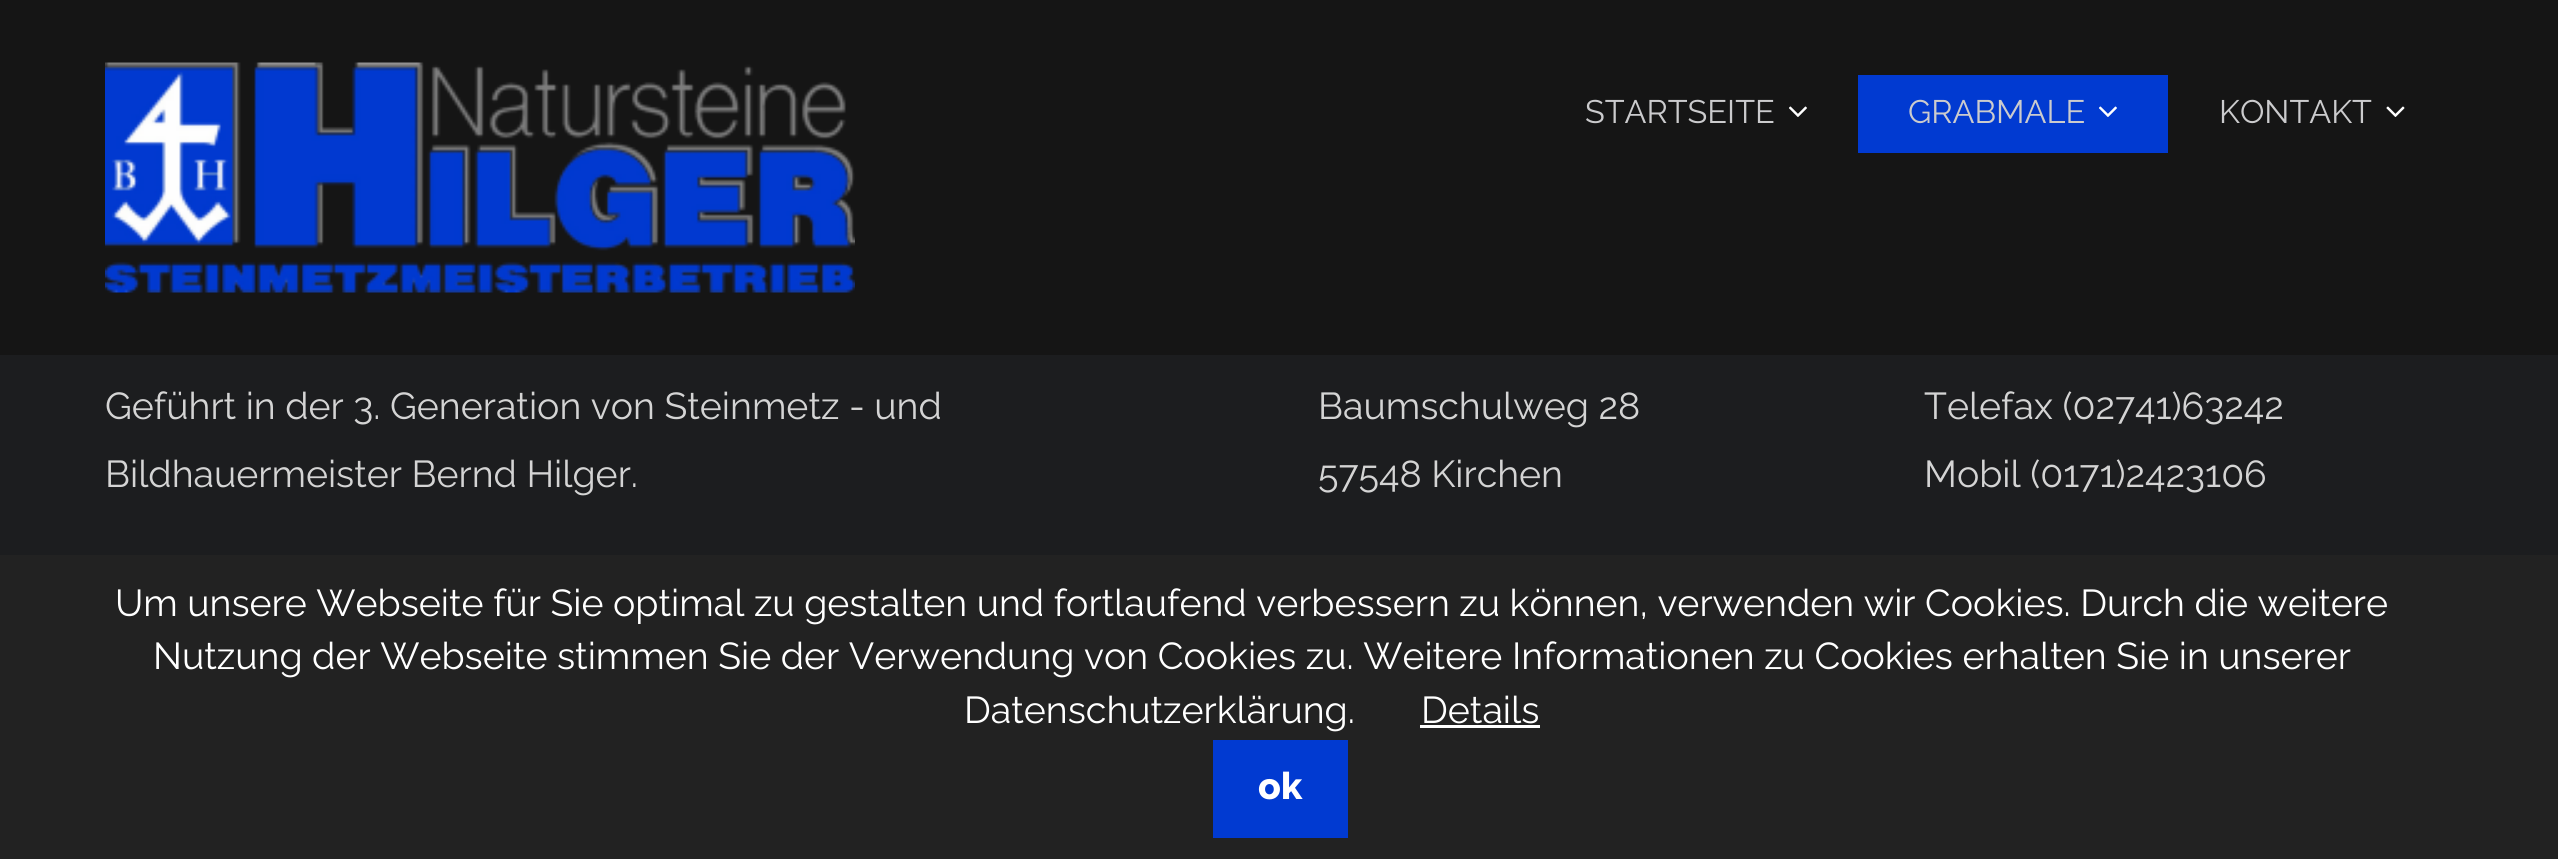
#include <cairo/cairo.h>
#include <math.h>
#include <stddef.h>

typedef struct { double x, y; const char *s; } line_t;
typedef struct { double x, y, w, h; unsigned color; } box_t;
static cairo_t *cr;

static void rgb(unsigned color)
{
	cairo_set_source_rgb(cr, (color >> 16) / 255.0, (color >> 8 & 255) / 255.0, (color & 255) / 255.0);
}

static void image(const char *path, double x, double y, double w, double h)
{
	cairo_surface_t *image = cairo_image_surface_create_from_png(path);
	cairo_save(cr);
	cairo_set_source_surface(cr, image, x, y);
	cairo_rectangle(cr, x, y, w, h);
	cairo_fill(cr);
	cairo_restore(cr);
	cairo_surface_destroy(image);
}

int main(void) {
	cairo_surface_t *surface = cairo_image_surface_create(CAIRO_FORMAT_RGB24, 2558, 859);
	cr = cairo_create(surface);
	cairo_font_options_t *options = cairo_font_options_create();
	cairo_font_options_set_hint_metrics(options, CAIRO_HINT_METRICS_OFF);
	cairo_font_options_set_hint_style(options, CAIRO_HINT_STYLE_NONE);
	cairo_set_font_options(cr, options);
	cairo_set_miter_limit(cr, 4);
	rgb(0x1c1d1f);
	cairo_paint(cr);
	rgb(0x151515);
	cairo_rectangle(cr, 0, 0, 2558, 355);
	cairo_fill(cr);
	image("img/1.png", 105, 62, 750, 231);
	image("img/2.png", 1789, 106, 18, 11);
	rgb(0x013ad1);
	cairo_rectangle(cr, 1858, 75, 310, 78);
	cairo_fill(cr);
	image("img/3.png", 2099, 106, 18, 11);
	image("img/4.png", 2386, 106, 19, 11);
	{
		static const box_t items[] = {
			{0, 555, 2558, 304, 0x222222},
			{1420, 725, 120, 3, 0xffffff},
			{1213, 740, 135, 98, 0x013ad1},
		};
		for (size_t i = 0; i < sizeof items / sizeof *items; i++) {
			rgb(items[i].color);
			cairo_rectangle(cr, items[i].x, items[i].y, items[i].w, items[i].h);
			cairo_fill(cr);
		}
	}
	cairo_select_font_face(cr, "Raleway Thin", CAIRO_FONT_SLANT_NORMAL, CAIRO_FONT_WEIGHT_NORMAL);
	cairo_set_font_size(cr, 32.5);
	rgb(0xcbcbcd);
	{
		static const line_t items[] = {
			{1585, 123, "STARTSEITE"},
			{1908, 123, "GRABMALE"},
			{2219, 123, "KONTAKT"},
		};
		for (size_t i = 0; i < sizeof items / sizeof *items; i++) {
			cairo_move_to(cr, items[i].x, items[i].y);
			cairo_show_text(cr, items[i].s);
		}
	}
	cairo_set_font_size(cr, 37.5);
	rgb(0xd4d4d4);
	{
		static const line_t items[] = {
			{105, 419, "Geführt in der 3. Generation von Steinmetz - und"},
			{105, 487, "Bildhauermeister Bernd Hilger."},
			{1318, 419, "Baumschulweg 28"},
			{1318, 487, "57548 Kirchen"},
			{1924, 419, "Telefax (02741)63242"},
			{1924, 487, "Mobil (0171)2423106"},
		};
		for (size_t i = 0; i < sizeof items / sizeof *items; i++) {
			cairo_move_to(cr, items[i].x, items[i].y);
			cairo_show_text(cr, items[i].s);
		}
	}
	rgb(0xffffff);
	{
		static const line_t items[] = {
			{115, 616, "Um unsere Webseite für Sie optimal zu gestalten und fortlaufend verbessern zu können, verwenden wir Cookies. Durch die weitere"},
			{153, 669, "Nutzung der Webseite stimmen Sie der Verwendung von Cookies zu. Weitere Informationen zu Cookies erhalten Sie in unserer"},
			{964, 723, "Datenschutzerklärung."},
			{1421, 723, "Details"},
		};
		for (size_t i = 0; i < sizeof items / sizeof *items; i++) {
			cairo_move_to(cr, items[i].x, items[i].y);
			cairo_show_text(cr, items[i].s);
		}
	}
	cairo_select_font_face(cr, "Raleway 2 Thin", CAIRO_FONT_SLANT_NORMAL, CAIRO_FONT_WEIGHT_NORMAL);
	cairo_move_to(cr, 1258, 799);
	cairo_show_text(cr, "ok");
	cairo_surface_write_to_png(surface, "page.png");
	cairo_font_options_destroy(options);
	cairo_destroy(cr);
	cairo_surface_destroy(surface);
	return 0;
}
